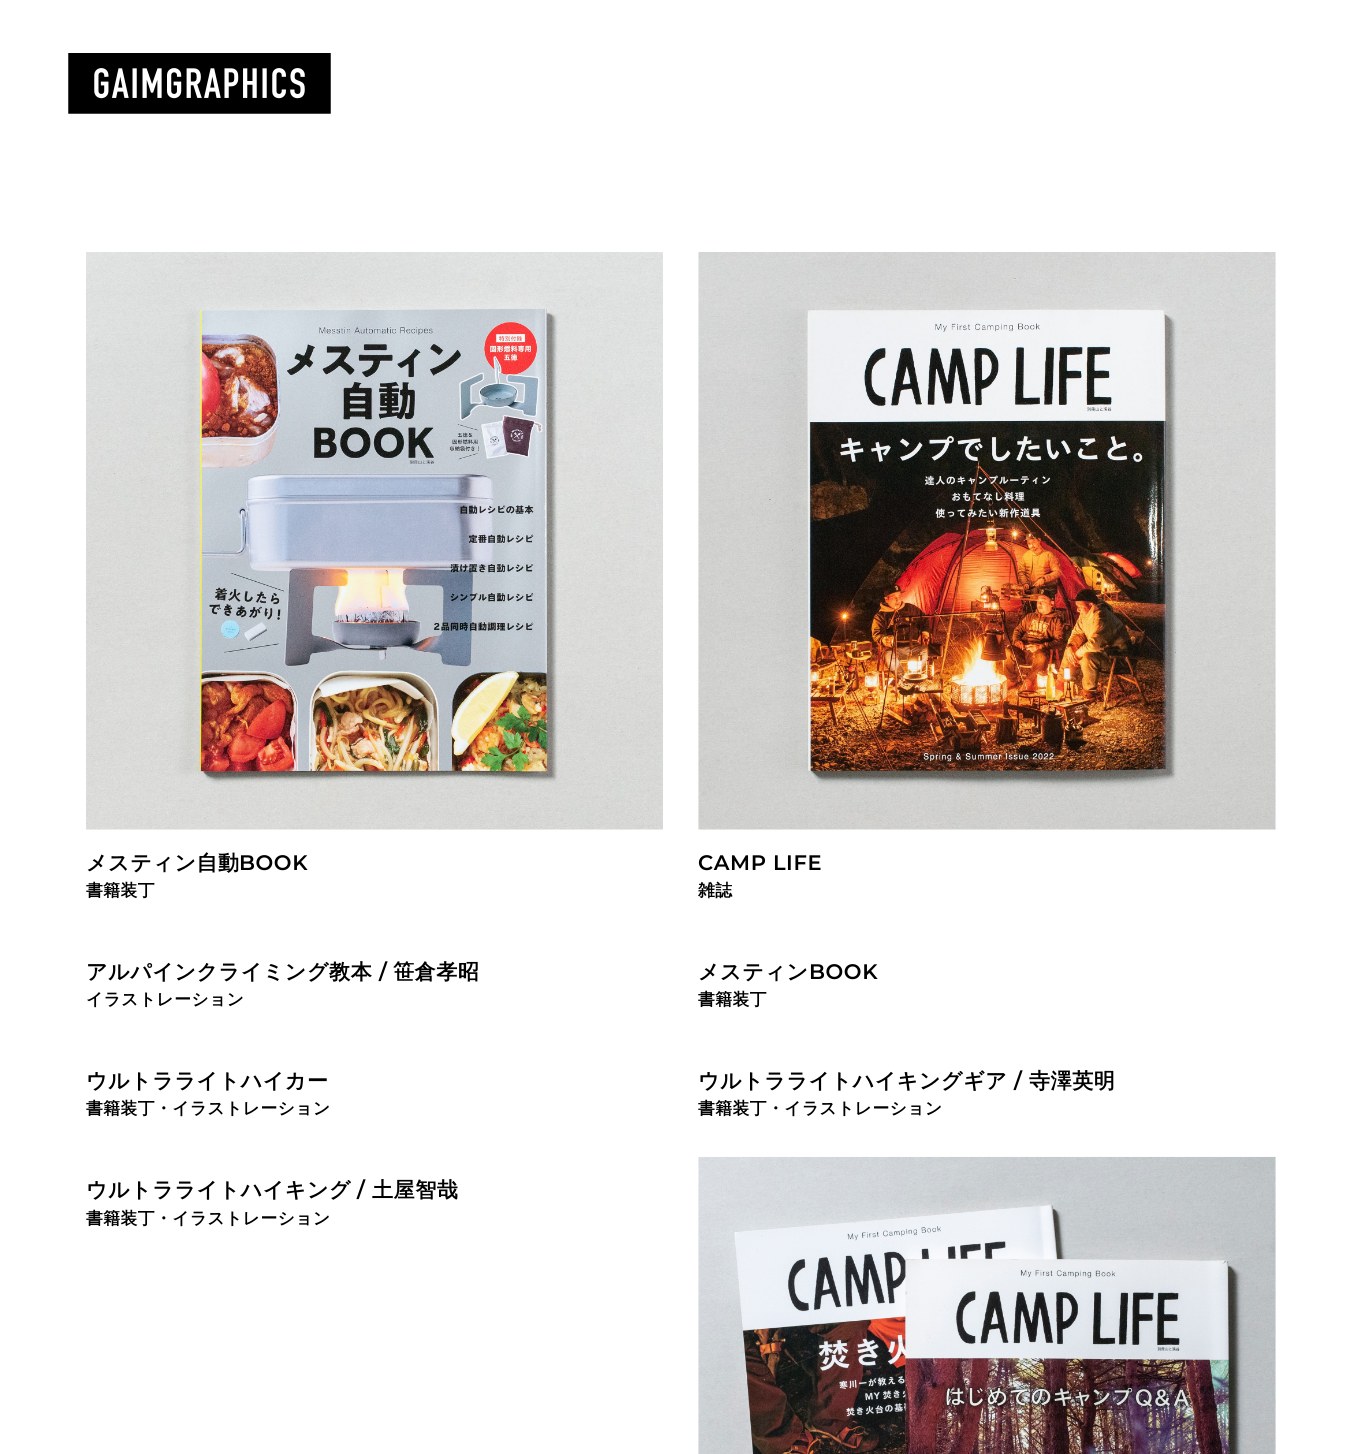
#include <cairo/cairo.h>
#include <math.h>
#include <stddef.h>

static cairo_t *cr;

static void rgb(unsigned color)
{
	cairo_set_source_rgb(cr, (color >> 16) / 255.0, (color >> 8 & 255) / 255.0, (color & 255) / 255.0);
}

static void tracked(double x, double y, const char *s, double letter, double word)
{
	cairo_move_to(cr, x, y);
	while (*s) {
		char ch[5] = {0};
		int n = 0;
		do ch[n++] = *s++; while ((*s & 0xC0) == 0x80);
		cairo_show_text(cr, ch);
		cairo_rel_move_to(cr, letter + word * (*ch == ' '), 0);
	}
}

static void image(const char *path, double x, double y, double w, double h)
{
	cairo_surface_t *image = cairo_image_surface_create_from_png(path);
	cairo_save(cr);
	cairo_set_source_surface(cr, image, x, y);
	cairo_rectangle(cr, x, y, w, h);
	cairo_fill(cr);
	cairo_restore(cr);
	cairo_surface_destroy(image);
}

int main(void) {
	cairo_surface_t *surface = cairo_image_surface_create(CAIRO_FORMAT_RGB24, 1360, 1454);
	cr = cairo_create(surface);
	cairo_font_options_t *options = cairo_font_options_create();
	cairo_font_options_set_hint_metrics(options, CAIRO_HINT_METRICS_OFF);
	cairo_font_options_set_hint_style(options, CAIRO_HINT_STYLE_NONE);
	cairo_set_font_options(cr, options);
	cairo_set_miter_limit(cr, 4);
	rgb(0xffffff);
	cairo_paint(cr);
	image("img/1.png", 68, 53, 263, 61);
	image("img/2.png", 86, 252, 577, 578);
	image("img/3.png", 698, 252, 578, 578);
	image("img/4.png", 698, 1156, 578, 298);
	cairo_select_font_face(cr, "WenQuanYi Zen Hei", CAIRO_FONT_SLANT_NORMAL, CAIRO_FONT_WEIGHT_BOLD);
	cairo_set_font_size(cr, 21);
	rgb(0x000000);
	tracked(86, 870, "メスティン自動", 0.6, 0);
	cairo_select_font_face(cr, "Montserrat SemiBold", CAIRO_FONT_SLANT_NORMAL, CAIRO_FONT_WEIGHT_NORMAL);
	tracked(239, 870, "BOOK", 0.6, 0);
	cairo_select_font_face(cr, "WenQuanYi Zen Hei", CAIRO_FONT_SLANT_NORMAL, CAIRO_FONT_WEIGHT_BOLD);
	cairo_set_font_size(cr, 16.75);
	tracked(86, 896, "書籍装丁", 0.5, 0);
	cairo_select_font_face(cr, "Montserrat SemiBold", CAIRO_FONT_SLANT_NORMAL, CAIRO_FONT_WEIGHT_NORMAL);
	cairo_set_font_size(cr, 21);
	tracked(698, 870, "CAMP LIFE", 0.6, 0);
	cairo_select_font_face(cr, "WenQuanYi Zen Hei", CAIRO_FONT_SLANT_NORMAL, CAIRO_FONT_WEIGHT_BOLD);
	cairo_set_font_size(cr, 16.75);
	tracked(698, 896, "雑誌", 0.5, 0);
	cairo_set_font_size(cr, 21);
	tracked(86, 979, "アルパインクライミング教本", 0.6, 0);
	cairo_select_font_face(cr, "Montserrat SemiBold", CAIRO_FONT_SLANT_NORMAL, CAIRO_FONT_WEIGHT_NORMAL);
	tracked(379, 979, "/", 0.6, 0);
	cairo_select_font_face(cr, "WenQuanYi Zen Hei", CAIRO_FONT_SLANT_NORMAL, CAIRO_FONT_WEIGHT_BOLD);
	tracked(393, 979, "笹倉孝昭", 0.6, 0);
	cairo_set_font_size(cr, 16.75);
	tracked(86, 1005, "イラストレーション", 0.5, 0);
	cairo_set_font_size(cr, 21);
	tracked(698, 979, "メスティン", 0.6, 0);
	cairo_select_font_face(cr, "Montserrat SemiBold", CAIRO_FONT_SLANT_NORMAL, CAIRO_FONT_WEIGHT_NORMAL);
	tracked(809, 979, "BOOK", 0.6, 0);
	cairo_select_font_face(cr, "WenQuanYi Zen Hei", CAIRO_FONT_SLANT_NORMAL, CAIRO_FONT_WEIGHT_BOLD);
	cairo_set_font_size(cr, 16.75);
	tracked(698, 1005, "書籍装丁", 0.5, 0);
	cairo_set_font_size(cr, 21);
	tracked(86, 1088, "ウルトラライトハイカー", 0.6, 0);
	cairo_set_font_size(cr, 16.75);
	tracked(86, 1114, "書籍装丁・イラストレーション", 0.5, 0);
	cairo_set_font_size(cr, 21);
	tracked(698, 1088, "ウルトラライトハイキングギア", 0.6, 0);
	cairo_select_font_face(cr, "Montserrat SemiBold", CAIRO_FONT_SLANT_NORMAL, CAIRO_FONT_WEIGHT_NORMAL);
	tracked(1014, 1088, "/", 0.6, 0);
	cairo_select_font_face(cr, "WenQuanYi Zen Hei", CAIRO_FONT_SLANT_NORMAL, CAIRO_FONT_WEIGHT_BOLD);
	tracked(1029, 1088, "寺澤英明", 0.6, 0);
	cairo_set_font_size(cr, 16.75);
	tracked(698, 1114, "書籍装丁・イラストレーション", 0.5, 0);
	cairo_set_font_size(cr, 21);
	tracked(86, 1197, "ウルトラライトハイキング", 0.6, 0);
	cairo_select_font_face(cr, "Montserrat SemiBold", CAIRO_FONT_SLANT_NORMAL, CAIRO_FONT_WEIGHT_NORMAL);
	tracked(357, 1197, "/", 0.6, 0);
	cairo_select_font_face(cr, "WenQuanYi Zen Hei", CAIRO_FONT_SLANT_NORMAL, CAIRO_FONT_WEIGHT_BOLD);
	tracked(372, 1197, "土屋智哉", 0.6, 0);
	cairo_set_font_size(cr, 16.75);
	tracked(86, 1224, "書籍装丁・イラストレーション", 0.5, 0);
	cairo_surface_write_to_png(surface, "page.png");
	cairo_font_options_destroy(options);
	cairo_destroy(cr);
	cairo_surface_destroy(surface);
	return 0;
}
